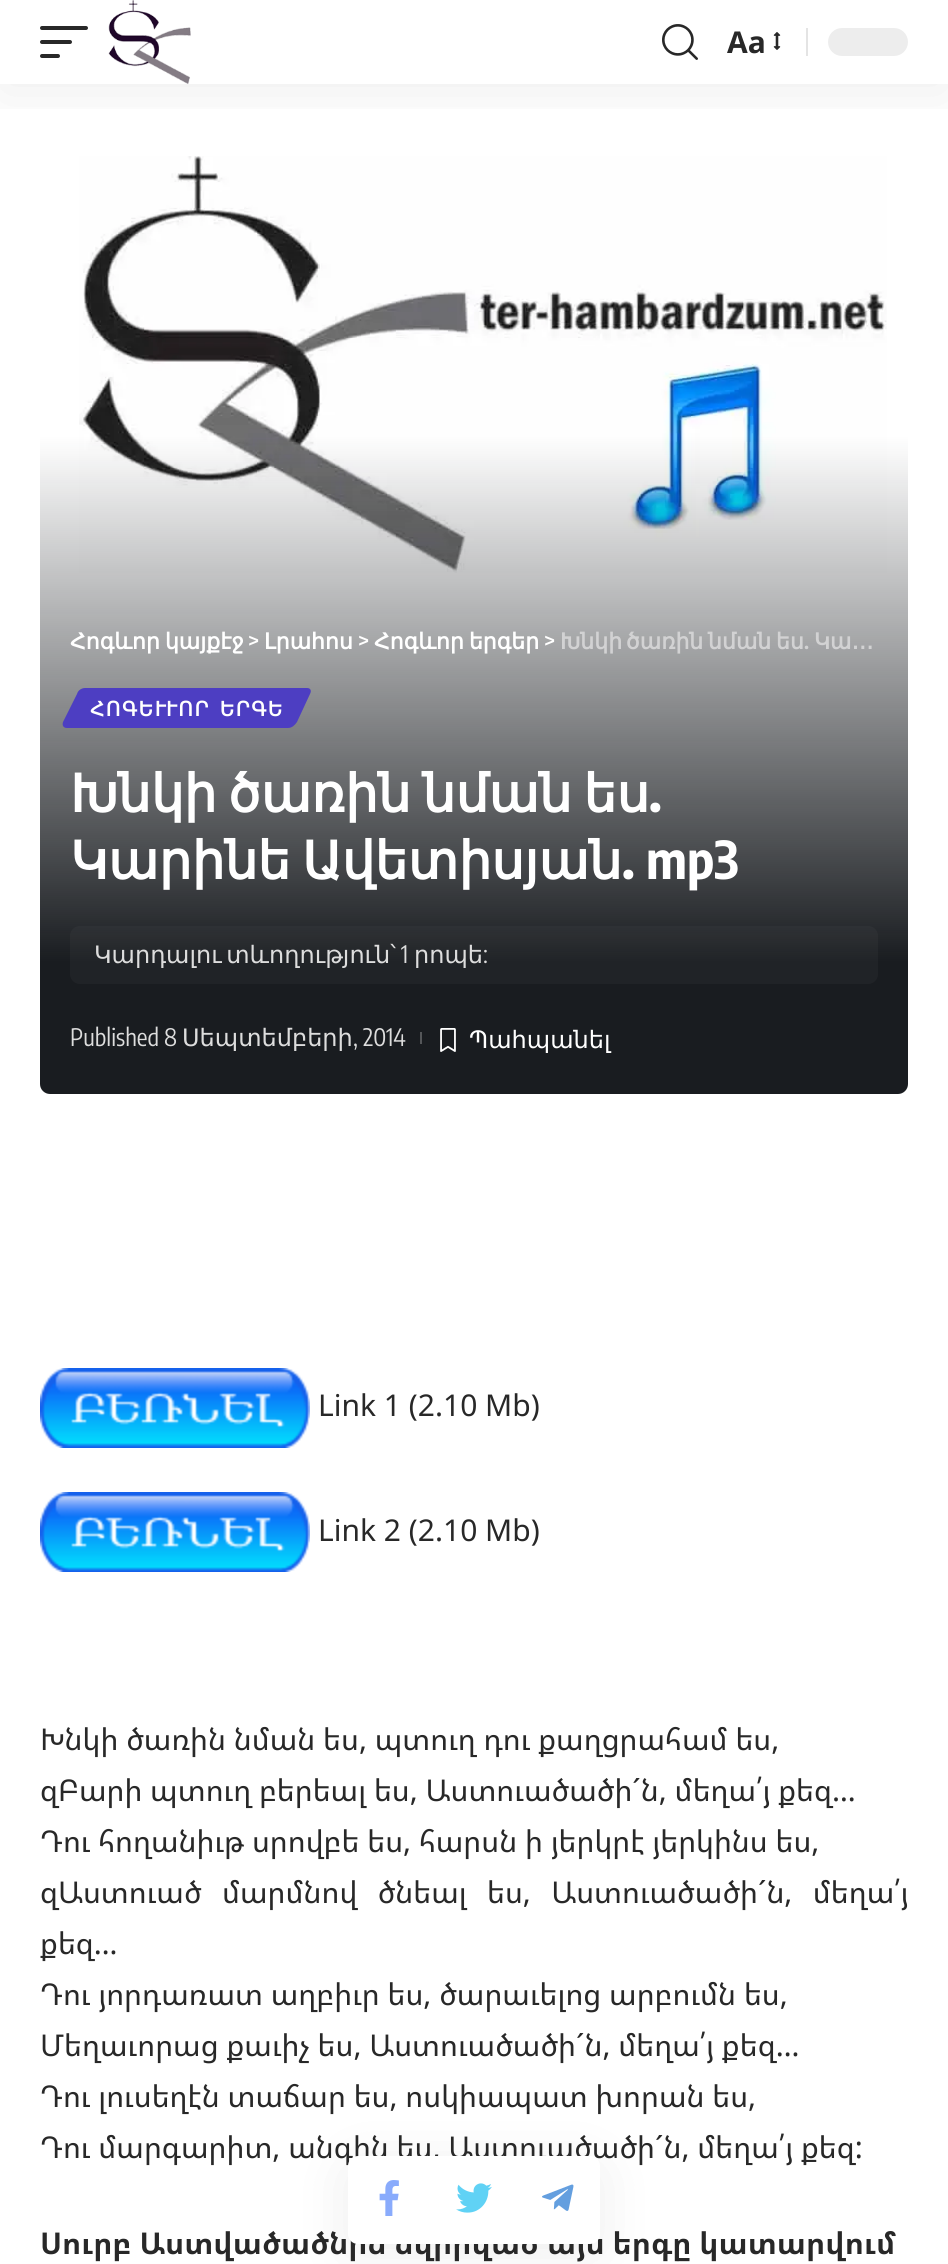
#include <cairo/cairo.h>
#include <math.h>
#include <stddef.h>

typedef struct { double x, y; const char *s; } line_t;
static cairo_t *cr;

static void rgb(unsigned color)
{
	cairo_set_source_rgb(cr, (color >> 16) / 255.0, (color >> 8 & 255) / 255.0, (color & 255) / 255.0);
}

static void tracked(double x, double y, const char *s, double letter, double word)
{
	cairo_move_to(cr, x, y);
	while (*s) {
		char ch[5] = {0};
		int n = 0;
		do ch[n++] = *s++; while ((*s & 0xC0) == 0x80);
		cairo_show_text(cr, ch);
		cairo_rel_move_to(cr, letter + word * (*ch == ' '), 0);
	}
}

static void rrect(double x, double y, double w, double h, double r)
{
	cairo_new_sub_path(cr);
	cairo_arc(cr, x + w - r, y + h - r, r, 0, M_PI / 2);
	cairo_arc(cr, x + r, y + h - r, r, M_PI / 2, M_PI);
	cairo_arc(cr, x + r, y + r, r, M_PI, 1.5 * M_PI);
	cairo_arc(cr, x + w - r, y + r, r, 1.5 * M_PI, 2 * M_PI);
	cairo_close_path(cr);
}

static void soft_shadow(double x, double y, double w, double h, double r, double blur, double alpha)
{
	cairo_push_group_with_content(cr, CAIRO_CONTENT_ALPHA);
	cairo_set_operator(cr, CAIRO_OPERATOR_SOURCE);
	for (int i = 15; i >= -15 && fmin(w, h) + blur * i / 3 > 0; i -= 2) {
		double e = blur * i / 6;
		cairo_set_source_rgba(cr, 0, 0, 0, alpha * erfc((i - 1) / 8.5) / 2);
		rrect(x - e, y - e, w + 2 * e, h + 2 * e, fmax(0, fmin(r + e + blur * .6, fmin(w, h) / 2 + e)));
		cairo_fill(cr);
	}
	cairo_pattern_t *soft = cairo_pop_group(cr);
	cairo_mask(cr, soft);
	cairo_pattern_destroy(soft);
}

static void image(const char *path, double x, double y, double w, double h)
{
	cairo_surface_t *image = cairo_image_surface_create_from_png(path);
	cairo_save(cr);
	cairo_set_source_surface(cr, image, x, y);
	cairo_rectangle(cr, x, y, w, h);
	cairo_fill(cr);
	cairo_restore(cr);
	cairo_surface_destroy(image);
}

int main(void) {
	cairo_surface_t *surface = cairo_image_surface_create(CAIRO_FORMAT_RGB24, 948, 2264);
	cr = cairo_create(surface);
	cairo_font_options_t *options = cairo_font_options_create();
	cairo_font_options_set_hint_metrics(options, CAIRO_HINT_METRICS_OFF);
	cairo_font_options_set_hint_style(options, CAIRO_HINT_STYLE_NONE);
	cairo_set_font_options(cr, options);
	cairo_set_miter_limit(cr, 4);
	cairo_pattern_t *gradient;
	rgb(0xffffff);
	cairo_paint(cr);
	image("img/4.png", 79, 156, 808, 417);
	cairo_save(cr);
	cairo_rectangle(cr, 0, 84, 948, 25);
	cairo_clip(cr);
	rgb(0x000000);
	soft_shadow(0, 8, 948, 84, 0, 30, 0.07);
	cairo_restore(cr);
	rgb(0x282828);
	rrect(40, 26, 48, 4, 2);
	cairo_fill(cr);
	rrect(40, 40, 32, 4, 2);
	cairo_fill(cr);
	rrect(40, 54, 20, 4, 2);
	cairo_fill(cr);
	image("img/1.png", 108, 0, 83, 84);
	image("img/2.png", 662, 24, 36, 36);
	image("img/3.png", 773, 32, 8, 18);
	rgb(0xe4e4e4);
	cairo_rectangle(cr, 806, 28, 2, 28);
	cairo_fill(cr);
	rgb(0xededed);
	rrect(828, 28, 80, 28, 14);
	cairo_fill(cr);
	gradient = cairo_pattern_create_linear(474, 1094, 474, 436);
	cairo_pattern_add_color_stop_rgba(gradient, 0.2, 0.098, 0.11, 0.125, 1);
	cairo_pattern_add_color_stop_rgba(gradient, 1, 0.098, 0.11, 0.125, 0);
	cairo_set_source(cr, gradient);
	cairo_pattern_destroy(gradient);
	cairo_new_path(cr);
	cairo_move_to(cr, 40, 436);
	cairo_line_to(cr, 908, 436);
	cairo_line_to(cr, 908, 1084);
	cairo_curve_to(cr, 908, 1089.5, 903.5, 1094, 898, 1094);
	cairo_line_to(cr, 50, 1094);
	cairo_curve_to(cr, 44.5, 1094, 40, 1089.5, 40, 1084);
	cairo_close_path(cr);
	cairo_fill(cr);
	rgb(0x4d3ec2);
	cairo_new_path(cr);
	cairo_move_to(cr, 85, 688);
	cairo_line_to(cr, 307, 688);
	cairo_curve_to(cr, 310, 688, 312, 690, 310, 694);
	cairo_line_to(cr, 297, 722);
	cairo_curve_to(cr, 295, 725, 292, 728, 288, 728);
	cairo_line_to(cr, 67, 728);
	cairo_curve_to(cr, 63, 728, 62, 725, 63, 722);
	cairo_line_to(cr, 77, 694);
	cairo_curve_to(cr, 78, 690, 82, 688, 85, 688);
	cairo_close_path(cr);
	cairo_fill(cr);
	cairo_set_source_rgba(cr, 0.533, 0.533, 0.533, 0.07);
	rrect(70, 926, 808, 58, 10);
	cairo_fill(cr);
	rgb(0x545659);
	cairo_rectangle(cr, 420, 1032, 2, 12);
	cairo_fill(cr);
	image("img/5.png", 440, 1028, 16, 24);
	image("img/6.png", 40, 1368, 270, 80);
	image("img/6.png", 40, 1492, 270, 80);
	rgb(0x000000);
	soft_shadow(348, 2166, 252, 88, 10, 30, 0.07);
	cairo_select_font_face(cr, "Noto Sans Armenian", CAIRO_FONT_SLANT_NORMAL, CAIRO_FONT_WEIGHT_BOLD);
	cairo_set_font_size(cr, 30);
	rgb(0x282828);
	cairo_move_to(cr, 727, 53);
	cairo_show_text(cr, "Aa");
	cairo_select_font_face(cr, "DejaVu Sans", CAIRO_FONT_SLANT_NORMAL, CAIRO_FONT_WEIGHT_BOLD);
	cairo_set_font_size(cr, 22);
	rgb(0xffffff);
	tracked(70, 649, "Հոգևոր կայքէջ", 0, -2);
	cairo_select_font_face(cr, "Encode Sans Condensed SemiBold", CAIRO_FONT_SLANT_NORMAL, CAIRO_FONT_WEIGHT_NORMAL);
	cairo_move_to(cr, 248, 649);
	cairo_show_text(cr, ">");
	cairo_select_font_face(cr, "DejaVu Sans", CAIRO_FONT_SLANT_NORMAL, CAIRO_FONT_WEIGHT_BOLD);
	cairo_move_to(cr, 264, 649);
	cairo_show_text(cr, "Լրահոս");
	cairo_select_font_face(cr, "Encode Sans Condensed SemiBold", CAIRO_FONT_SLANT_NORMAL, CAIRO_FONT_WEIGHT_NORMAL);
	cairo_move_to(cr, 358, 649);
	cairo_show_text(cr, ">");
	cairo_select_font_face(cr, "DejaVu Sans", CAIRO_FONT_SLANT_NORMAL, CAIRO_FONT_WEIGHT_BOLD);
	tracked(374, 649, "Հոգևոր երգեր", 0, -2);
	cairo_select_font_face(cr, "Encode Sans Condensed SemiBold", CAIRO_FONT_SLANT_NORMAL, CAIRO_FONT_WEIGHT_NORMAL);
	cairo_move_to(cr, 544, 649);
	cairo_show_text(cr, ">");
	cairo_select_font_face(cr, "DejaVu Sans", CAIRO_FONT_SLANT_NORMAL, CAIRO_FONT_WEIGHT_BOLD);
	rgb(0xd2d2d3);
	{
		static const line_t items[] = {
			{560, 649, "Խնկի"},
			{626, 649, "ծառին"},
			{708, 649, "նման"},
			{776, 649, "ես"},
			{814, 649, "Կա…"},
		};
		for (size_t i = 0; i < sizeof items / sizeof *items; i++) {
			cairo_move_to(cr, items[i].x, items[i].y);
			cairo_show_text(cr, items[i].s);
		}
	}
	cairo_select_font_face(cr, "Encode Sans Condensed SemiBold", CAIRO_FONT_SLANT_NORMAL, CAIRO_FONT_WEIGHT_NORMAL);
	cairo_move_to(cr, 804, 649);
	cairo_show_text(cr, ".");
	cairo_select_font_face(cr, "DejaVu Sans", CAIRO_FONT_SLANT_NORMAL, CAIRO_FONT_WEIGHT_BOLD);
	cairo_set_font_size(cr, 20);
	rgb(0xffffff);
	tracked(90, 716, "ՀՈԳԵՒ", 1.5, 0);
	tracked(166, 716, "ՒՈՐ ԵՐԳԵ", 1.5, 2);
	cairo_set_font_size(cr, 52);
	tracked(70, 812, "Խնկի ծառին նման ես", 0, -5);
	cairo_select_font_face(cr, "Encode Sans Condensed", CAIRO_FONT_SLANT_NORMAL, CAIRO_FONT_WEIGHT_BOLD);
	cairo_move_to(cr, 649, 812);
	cairo_show_text(cr, ".");
	cairo_select_font_face(cr, "DejaVu Sans", CAIRO_FONT_SLANT_NORMAL, CAIRO_FONT_WEIGHT_BOLD);
	cairo_move_to(cr, 70, 879);
	cairo_show_text(cr, "Կարինե");
	cairo_move_to(cr, 302, 879);
	cairo_show_text(cr, "Ավետիսյան");
	cairo_select_font_face(cr, "Encode Sans Condensed", CAIRO_FONT_SLANT_NORMAL, CAIRO_FONT_WEIGHT_BOLD);
	cairo_move_to(cr, 622, 879);
	cairo_show_text(cr, ". mp3");
	cairo_select_font_face(cr, "DejaVu Sans", CAIRO_FONT_SLANT_NORMAL, CAIRO_FONT_WEIGHT_NORMAL);
	cairo_set_font_size(cr, 24);
	rgb(0xdddddd);
	tracked(94, 963, "Կարդալու տևողություն՝", 0, -3);
	cairo_select_font_face(cr, "Encode Sans Condensed", CAIRO_FONT_SLANT_NORMAL, CAIRO_FONT_WEIGHT_NORMAL);
	cairo_move_to(cr, 401, 963);
	cairo_show_text(cr, "1");
	cairo_select_font_face(cr, "DejaVu Sans", CAIRO_FONT_SLANT_NORMAL, CAIRO_FONT_WEIGHT_NORMAL);
	cairo_move_to(cr, 414, 963);
	cairo_show_text(cr, "րոպե");
	cairo_select_font_face(cr, "Encode Sans Condensed", CAIRO_FONT_SLANT_NORMAL, CAIRO_FONT_WEIGHT_NORMAL);
	cairo_move_to(cr, 483, 963);
	cairo_show_text(cr, ":");
	cairo_move_to(cr, 70, 1046);
	cairo_show_text(cr, "Published 8");
	cairo_select_font_face(cr, "DejaVu Sans", CAIRO_FONT_SLANT_NORMAL, CAIRO_FONT_WEIGHT_NORMAL);
	cairo_move_to(cr, 182, 1046);
	cairo_show_text(cr, "Սեպտեմբերի");
	cairo_select_font_face(cr, "Encode Sans Condensed", CAIRO_FONT_SLANT_NORMAL, CAIRO_FONT_WEIGHT_NORMAL);
	cairo_move_to(cr, 353, 1046);
	cairo_show_text(cr, ", 2014");
	cairo_select_font_face(cr, "DejaVu Sans", CAIRO_FONT_SLANT_NORMAL, CAIRO_FONT_WEIGHT_NORMAL);
	rgb(0xffffff);
	cairo_move_to(cr, 469, 1048);
	cairo_show_text(cr, "Պահպանել");
	cairo_select_font_face(cr, "Noto Sans Armenian", CAIRO_FONT_SLANT_NORMAL, CAIRO_FONT_WEIGHT_NORMAL);
	cairo_set_font_size(cr, 30);
	rgb(0x282828);
	{
		static const line_t items[] = {
			{318, 1416, "Link 1 (2.10 Mb)"},
			{318, 1541, "Link 2 (2.10 Mb)"},
			{40, 1750, "Խնկի ծառին նման ես, պտուղ դու քաղցրահամ ես,"},
			{40, 1801, "զԲարի պտուղ բերեալ ես, Աստուածածի´ն, մեղա՛յ քեզ…"},
			{40, 1852, "Դու հողանիւթ սրովբե ես, հարսն ի յերկրէ յերկինս ես,"},
		};
		for (size_t i = 0; i < sizeof items / sizeof *items; i++) {
			cairo_move_to(cr, items[i].x, items[i].y);
			cairo_show_text(cr, items[i].s);
		}
	}
	tracked(40, 1903, "զԱստուած մարմնով ծնեալ ես, Աստուածածի´ն, մեղա՛յ", 0, 12.5);
	{
		static const line_t items[] = {
			{40, 1954, "քեզ…"},
			{40, 2005, "Դու յորդառատ աղբիւր ես, ծարաւելոց արբումն ես,"},
			{40, 2056, "Մեղաւորաց քաւիչ ես, Աստուածածի´ն, մեղա՛յ քեզ…"},
			{40, 2107, "Դու լուսեղէն տաճար ես, ոսկիապատ խորան ես,"},
			{40, 2158, "Դու մարգարիտ, անգին ես, Աստուածածի´ն, մեղա՛յ քեզ:"},
		};
		for (size_t i = 0; i < sizeof items / sizeof *items; i++) {
			cairo_move_to(cr, items[i].x, items[i].y);
			cairo_show_text(cr, items[i].s);
		}
	}
	cairo_select_font_face(cr, "Noto Sans Armenian", CAIRO_FONT_SLANT_NORMAL, CAIRO_FONT_WEIGHT_BOLD);
	cairo_move_to(cr, 40, 2254);
	cairo_show_text(cr, "Սուրբ Աստվածածնին նվիրված այս երգը կատարվում");
	rgb(0xffffff);
	rrect(348, 2156, 252, 88, 10);
	cairo_fill(cr);
	image("img/7.png", 379, 2180, 20, 36);
	image("img/8.png", 456, 2183, 36, 30);
	image("img/9.png", 542, 2184, 32, 27);
	cairo_surface_write_to_png(surface, "page.png");
	cairo_font_options_destroy(options);
	cairo_destroy(cr);
	cairo_surface_destroy(surface);
	return 0;
}
